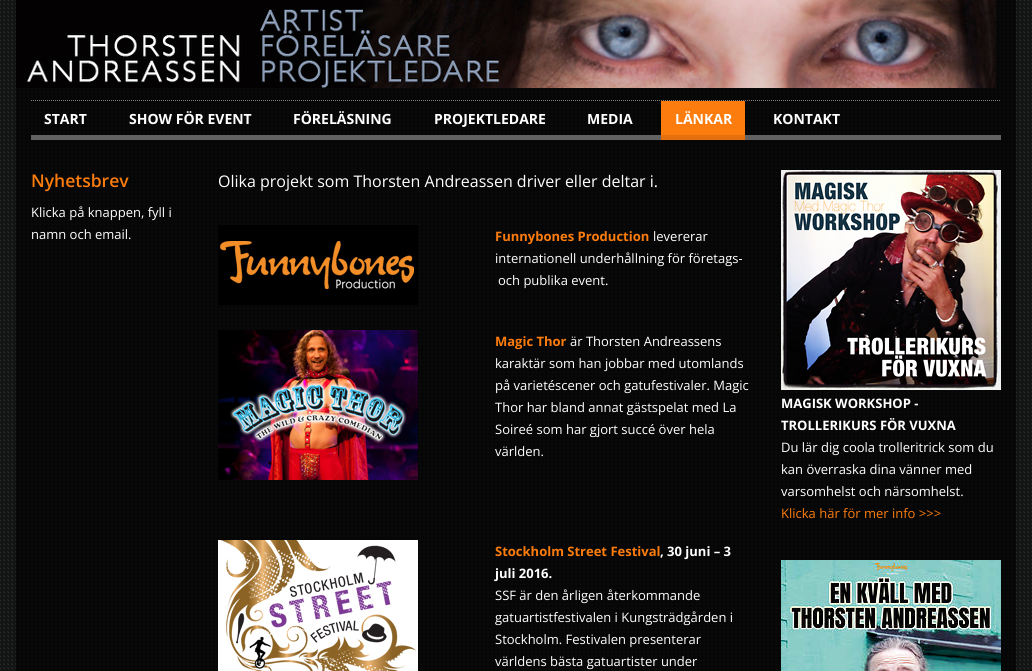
#include <cairo/cairo.h>
#include <math.h>
#include <stddef.h>

typedef struct { double x, y; const char *s; } line_t;
static cairo_t *cr;

static void rgb(unsigned color)
{
	cairo_set_source_rgb(cr, (color >> 16) / 255.0, (color >> 8 & 255) / 255.0, (color & 255) / 255.0);
}

static void image(const char *path, double x, double y, double w, double h)
{
	cairo_surface_t *image = cairo_image_surface_create_from_png(path);
	cairo_save(cr);
	cairo_set_source_surface(cr, image, x, y);
	cairo_rectangle(cr, x, y, w, h);
	cairo_fill(cr);
	cairo_restore(cr);
	cairo_surface_destroy(image);
}

int main(void) {
	cairo_surface_t *surface = cairo_image_surface_create(CAIRO_FORMAT_RGB24, 1032, 671);
	cr = cairo_create(surface);
	cairo_font_options_t *options = cairo_font_options_create();
	cairo_font_options_set_hint_metrics(options, CAIRO_HINT_METRICS_OFF);
	cairo_font_options_set_hint_style(options, CAIRO_HINT_STYLE_NONE);
	cairo_set_font_options(cr, options);
	cairo_set_miter_limit(cr, 4);
	rgb(0x080808);
	cairo_paint(cr);
	image("img/1.png", 0, 0, 1032, 671);
	cairo_set_source_rgba(cr, 0, 0, 0, 0.7);
	cairo_rectangle(cr, 16, 0, 1000, 100);
	cairo_fill(cr);
	image("img/2.png", 16, 0, 980, 88);
	cairo_rectangle(cr, 16, 100, 1000, 70);
	cairo_fill(cr);
	cairo_new_path(cr);
	cairo_move_to(cr, 31, 100.5);
	cairo_line_to(cr, 1001, 100.5);
	rgb(0x817c74);
	cairo_set_line_width(cr, 1);
	cairo_set_dash(cr, (double[]){1, 1}, 2, 0);
	cairo_stroke(cr);
	rgb(0x626262);
	cairo_rectangle(cr, 31, 135, 970, 5);
	cairo_fill(cr);
	rgb(0xfc7c0d);
	cairo_rectangle(cr, 661, 101, 84, 34);
	cairo_fill(cr);
	rgb(0xe3700c);
	cairo_rectangle(cr, 661, 135, 84, 5);
	cairo_fill(cr);
	cairo_set_source_rgba(cr, 0, 0, 0, 0.7);
	cairo_rectangle(cr, 16, 170, 1000, 501);
	cairo_fill(cr);
	image("img/3.png", 218, 225, 200, 80);
	image("img/4.png", 218, 330, 200, 150);
	image("img/5.png", 218, 540, 200, 131);
	image("img/6.png", 781, 170, 220, 220);
	image("img/7.png", 781, 560, 220, 111);
	cairo_select_font_face(cr, "Open Sans", CAIRO_FONT_SLANT_NORMAL, CAIRO_FONT_WEIGHT_BOLD);
	cairo_set_font_size(cr, 14);
	rgb(0xffffff);
	{
		static const line_t items[] = {
			{44, 124, "START"},
			{129, 124, "SHOW FÖR EVENT"},
			{293, 124, "FÖRELÄSNING"},
			{434, 124, "PROJEKTLEDARE"},
			{587, 124, "MEDIA"},
			{675, 124, "LÄNKAR"},
			{773, 124, "KONTAKT"},
		};
		for (size_t i = 0; i < sizeof items / sizeof *items; i++) {
			cairo_move_to(cr, items[i].x, items[i].y);
			cairo_show_text(cr, items[i].s);
		}
	}
	cairo_select_font_face(cr, "Open Sans SemiBold", CAIRO_FONT_SLANT_NORMAL, CAIRO_FONT_WEIGHT_NORMAL);
	cairo_set_font_size(cr, 17.5);
	rgb(0xfc7c0d);
	cairo_move_to(cr, 31, 187);
	cairo_show_text(cr, "Nyhetsbrev");
	cairo_select_font_face(cr, "Open Sans", CAIRO_FONT_SLANT_NORMAL, CAIRO_FONT_WEIGHT_NORMAL);
	cairo_set_font_size(cr, 13);
	rgb(0xffffff);
	cairo_move_to(cr, 31, 217);
	cairo_show_text(cr, "Klicka på knappen, fyll i");
	cairo_move_to(cr, 31, 239);
	cairo_show_text(cr, "namn och email.");
	cairo_set_font_size(cr, 16);
	cairo_move_to(cr, 218, 187);
	cairo_show_text(cr, "Olika projekt som Thorsten Andreassen driver eller deltar i.");
	cairo_select_font_face(cr, "Open Sans", CAIRO_FONT_SLANT_NORMAL, CAIRO_FONT_WEIGHT_BOLD);
	cairo_set_font_size(cr, 13);
	rgb(0xfc7c0d);
	cairo_move_to(cr, 495, 241);
	cairo_show_text(cr, "Funnybones Production");
	cairo_select_font_face(cr, "Open Sans", CAIRO_FONT_SLANT_NORMAL, CAIRO_FONT_WEIGHT_NORMAL);
	rgb(0xffffff);
	{
		static const line_t items[] = {
			{653, 241, "levererar"},
			{495, 263, "internationell underhållning för företags-"},
			{498, 285, "och publika event."},
		};
		for (size_t i = 0; i < sizeof items / sizeof *items; i++) {
			cairo_move_to(cr, items[i].x, items[i].y);
			cairo_show_text(cr, items[i].s);
		}
	}
	cairo_select_font_face(cr, "Open Sans", CAIRO_FONT_SLANT_NORMAL, CAIRO_FONT_WEIGHT_BOLD);
	rgb(0xfc7c0d);
	cairo_move_to(cr, 495, 346);
	cairo_show_text(cr, "Magic Thor");
	cairo_select_font_face(cr, "Open Sans", CAIRO_FONT_SLANT_NORMAL, CAIRO_FONT_WEIGHT_NORMAL);
	rgb(0xffffff);
	{
		static const line_t items[] = {
			{570, 346, "är Thorsten Andreassens"},
			{495, 368, "karaktär som han jobbar med utomlands"},
			{495, 390, "på varietéscener och gatufestivaler. Magic"},
			{495, 412, "Thor har bland annat gästspelat med La"},
			{495, 434, "Soireé som har gjort succé över hela"},
			{495, 456, "världen."},
		};
		for (size_t i = 0; i < sizeof items / sizeof *items; i++) {
			cairo_move_to(cr, items[i].x, items[i].y);
			cairo_show_text(cr, items[i].s);
		}
	}
	cairo_select_font_face(cr, "Open Sans", CAIRO_FONT_SLANT_NORMAL, CAIRO_FONT_WEIGHT_BOLD);
	rgb(0xfc7c0d);
	cairo_move_to(cr, 495, 556);
	cairo_show_text(cr, "Stockholm Street Festival");
	rgb(0xffffff);
	cairo_move_to(cr, 660, 556);
	cairo_show_text(cr, ", 30 juni – 3");
	cairo_move_to(cr, 495, 578);
	cairo_show_text(cr, "juli 2016.");
	cairo_select_font_face(cr, "Open Sans", CAIRO_FONT_SLANT_NORMAL, CAIRO_FONT_WEIGHT_NORMAL);
	{
		static const line_t items[] = {
			{495, 600, "SSF är den årligen återkommande"},
			{495, 622, "gatuartistfestivalen i Kungsträdgården i"},
			{495, 644, "Stockholm. Festivalen presenterar"},
			{495, 666, "världens bästa gatuartister under"},
		};
		for (size_t i = 0; i < sizeof items / sizeof *items; i++) {
			cairo_move_to(cr, items[i].x, items[i].y);
			cairo_show_text(cr, items[i].s);
		}
	}
	cairo_select_font_face(cr, "Open Sans", CAIRO_FONT_SLANT_NORMAL, CAIRO_FONT_WEIGHT_BOLD);
	cairo_move_to(cr, 781, 408);
	cairo_show_text(cr, "MAGISK WORKSHOP -");
	cairo_move_to(cr, 781, 430);
	cairo_show_text(cr, "TROLLERIKURS FÖR VUXNA");
	cairo_select_font_face(cr, "Open Sans", CAIRO_FONT_SLANT_NORMAL, CAIRO_FONT_WEIGHT_NORMAL);
	{
		static const line_t items[] = {
			{781, 452, "Du lär dig coola trolleritrick som du"},
			{781, 474, "kan överraska dina vänner med"},
			{781, 496, "varsomhelst och närsomhelst."},
		};
		for (size_t i = 0; i < sizeof items / sizeof *items; i++) {
			cairo_move_to(cr, items[i].x, items[i].y);
			cairo_show_text(cr, items[i].s);
		}
	}
	rgb(0xfc7c0d);
	cairo_move_to(cr, 781, 518);
	cairo_show_text(cr, "Klicka här för mer info >>>");
	cairo_surface_write_to_png(surface, "page.png");
	cairo_font_options_destroy(options);
	cairo_destroy(cr);
	cairo_surface_destroy(surface);
	return 0;
}
